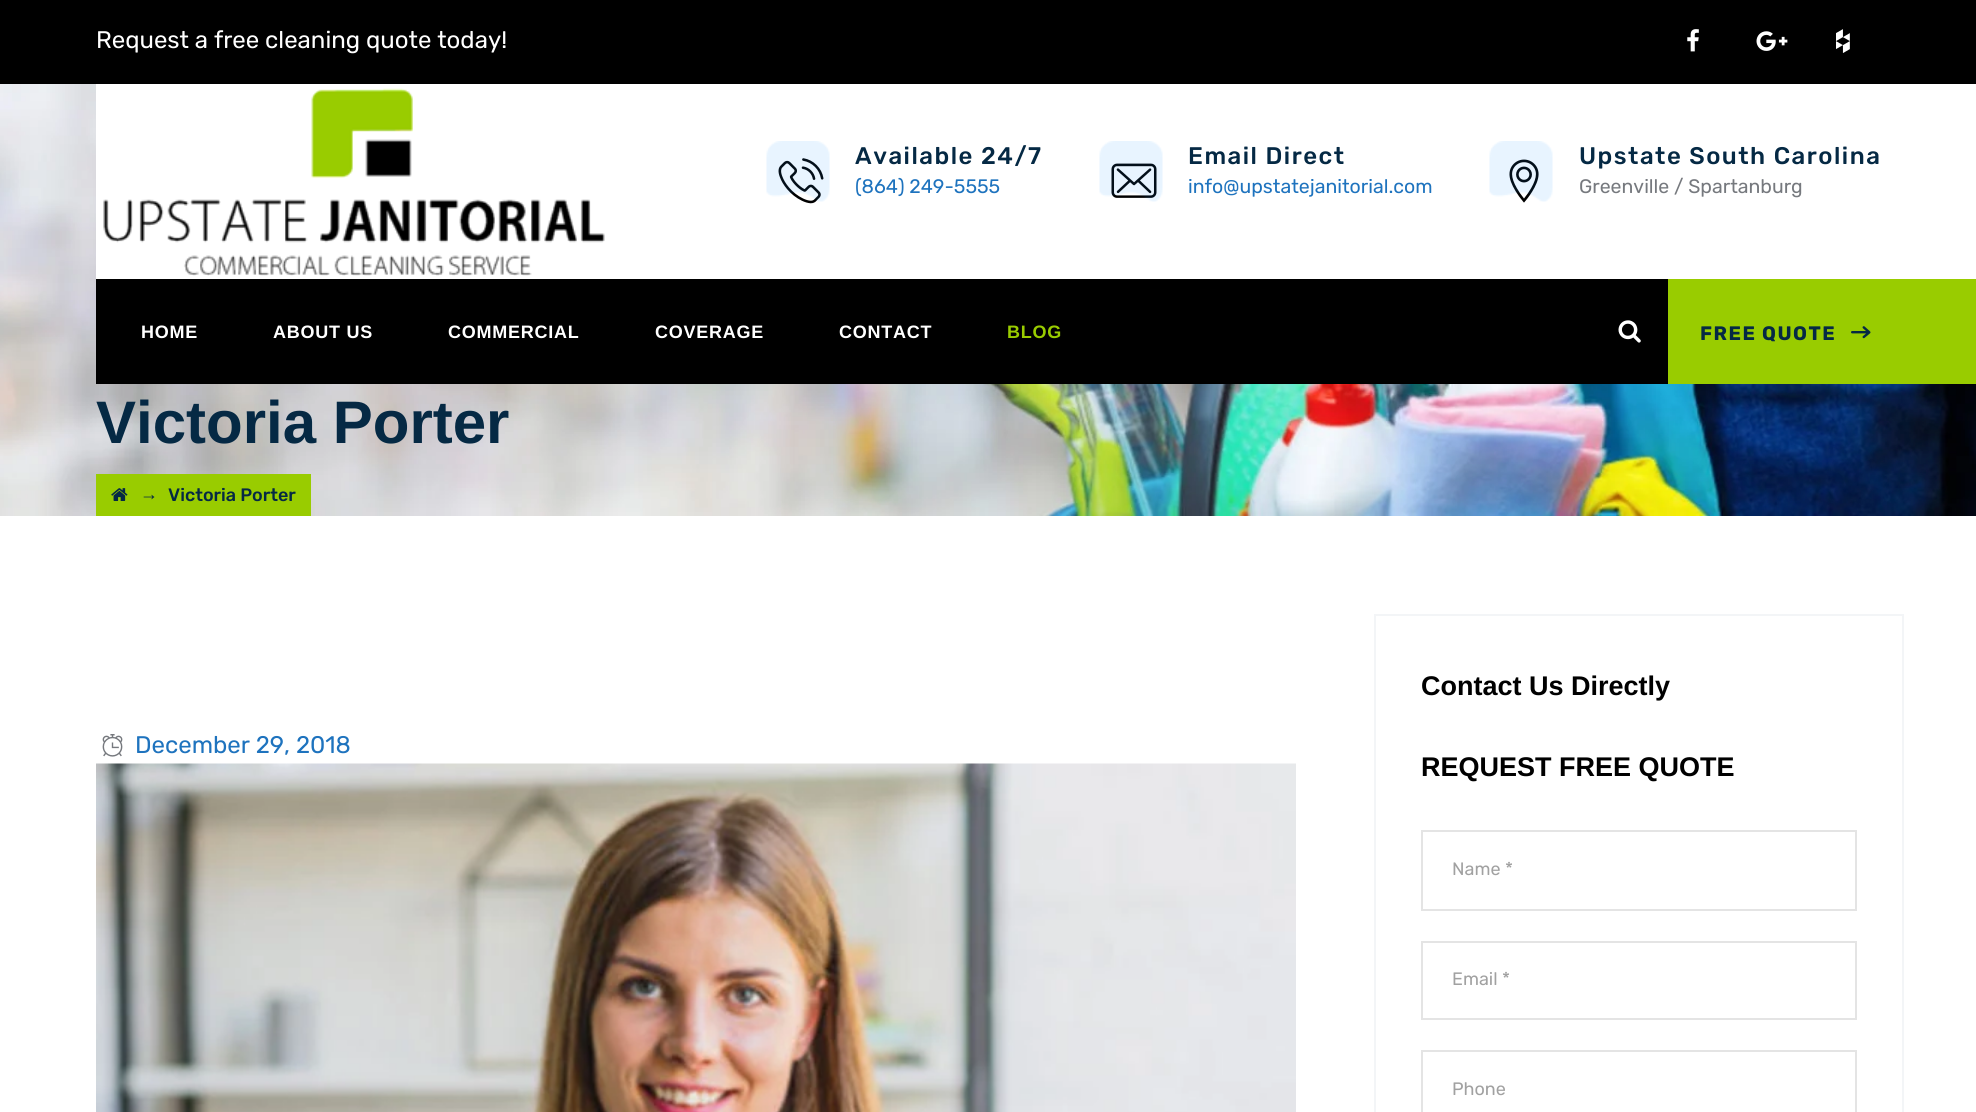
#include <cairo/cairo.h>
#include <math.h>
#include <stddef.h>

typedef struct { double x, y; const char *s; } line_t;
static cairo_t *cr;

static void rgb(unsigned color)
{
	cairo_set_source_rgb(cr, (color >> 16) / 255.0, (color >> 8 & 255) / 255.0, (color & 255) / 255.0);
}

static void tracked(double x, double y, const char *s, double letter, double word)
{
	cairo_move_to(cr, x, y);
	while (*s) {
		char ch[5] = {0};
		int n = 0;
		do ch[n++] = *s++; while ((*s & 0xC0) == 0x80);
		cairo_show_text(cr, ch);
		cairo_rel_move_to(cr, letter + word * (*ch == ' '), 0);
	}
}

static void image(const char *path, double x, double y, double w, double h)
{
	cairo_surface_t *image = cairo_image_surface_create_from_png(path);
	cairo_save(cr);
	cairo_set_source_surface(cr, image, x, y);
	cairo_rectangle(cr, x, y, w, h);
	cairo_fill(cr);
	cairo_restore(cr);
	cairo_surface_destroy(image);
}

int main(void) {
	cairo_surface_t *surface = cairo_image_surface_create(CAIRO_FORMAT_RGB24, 1976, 1112);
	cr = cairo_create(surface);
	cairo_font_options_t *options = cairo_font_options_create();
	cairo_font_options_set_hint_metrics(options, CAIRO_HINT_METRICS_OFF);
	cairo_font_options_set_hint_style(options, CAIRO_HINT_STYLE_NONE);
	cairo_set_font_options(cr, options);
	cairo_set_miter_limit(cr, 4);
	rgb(0xffffff);
	cairo_paint(cr);
	rgb(0x000000);
	cairo_rectangle(cr, 0, 0, 1976, 84);
	cairo_fill(cr);
	image("img/1.png", 1687, 29, 12, 23);
	image("img/2.png", 1756, 31, 32, 20);
	image("img/3.png", 1836, 29, 14, 24);
	image("img/13.png", 0, 84, 1976, 432);
	rgb(0xffffff);
	cairo_rectangle(cr, 96, 84, 1880, 195);
	cairo_fill(cr);
	image("img/4.png", 103, 88, 502, 188);
	image("img/6.png", 778, 158, 46, 46);
	image("img/5.png", 766, 141, 64, 61);
	image("img/8.png", 1111, 163, 46, 35);
	image("img/7.png", 1099, 141, 64, 61);
	image("img/10.png", 1509, 159, 30, 44);
	image("img/9.png", 1489, 141, 64, 61);
	rgb(0x000000);
	cairo_rectangle(cr, 96, 279, 1572, 105);
	cairo_fill(cr);
	image("img/11.png", 1618, 320, 23, 23);
	rgb(0x99cc00);
	cairo_rectangle(cr, 1668, 279, 308, 105);
	cairo_fill(cr);
	image("img/12.png", 1851, 326, 20, 13);
	cairo_rectangle(cr, 96, 474, 215, 42);
	cairo_fill(cr);
	image("img/14.png", 111, 488, 17, 13);
	image("img/15.png", 102, 734, 21, 23);
	image("img/16.png", 96, 763, 1200, 349);
	cairo_rectangle(cr, 1375, 615, 528, 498);
	rgb(0xf3f5f7);
	cairo_stroke(cr);
	cairo_rectangle(cr, 1422, 831, 434, 79);
	rgb(0xe4e4e4);
	cairo_stroke(cr);
	cairo_rectangle(cr, 1422, 942, 434, 77);
	cairo_stroke(cr);
	cairo_rectangle(cr, 1422, 1051, 434, 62);
	cairo_stroke(cr);
	cairo_select_font_face(cr, "Rubik", CAIRO_FONT_SLANT_NORMAL, CAIRO_FONT_WEIGHT_NORMAL);
	cairo_set_font_size(cr, 24);
	rgb(0xffffff);
	cairo_move_to(cr, 96, 48);
	cairo_show_text(cr, "Request a free cleaning quote today!");
	cairo_select_font_face(cr, "Rubik Medium", CAIRO_FONT_SLANT_NORMAL, CAIRO_FONT_WEIGHT_NORMAL);
	rgb(0x052944);
	tracked(855, 164, "Available 24/7", 1.5, 0);
	cairo_select_font_face(cr, "Rubik", CAIRO_FONT_SLANT_NORMAL, CAIRO_FONT_WEIGHT_NORMAL);
	cairo_set_font_size(cr, 19.5);
	rgb(0x1e73be);
	cairo_move_to(cr, 855, 193);
	cairo_show_text(cr, "(864) 249-5555");
	cairo_select_font_face(cr, "Rubik Medium", CAIRO_FONT_SLANT_NORMAL, CAIRO_FONT_WEIGHT_NORMAL);
	cairo_set_font_size(cr, 24);
	rgb(0x052944);
	tracked(1188, 164, "Email Direct", 1.5, 0);
	cairo_select_font_face(cr, "Rubik", CAIRO_FONT_SLANT_NORMAL, CAIRO_FONT_WEIGHT_NORMAL);
	cairo_set_font_size(cr, 19.5);
	rgb(0x1e73be);
	cairo_move_to(cr, 1188, 193);
	cairo_show_text(cr, "info@upstatejanitorial.com");
	cairo_select_font_face(cr, "Rubik Medium", CAIRO_FONT_SLANT_NORMAL, CAIRO_FONT_WEIGHT_NORMAL);
	cairo_set_font_size(cr, 24);
	rgb(0x052944);
	tracked(1579, 164, "Upstate South Carolina", 1.5, 0);
	cairo_select_font_face(cr, "Rubik", CAIRO_FONT_SLANT_NORMAL, CAIRO_FONT_WEIGHT_NORMAL);
	cairo_set_font_size(cr, 19.5);
	rgb(0x76797e);
	cairo_move_to(cr, 1579, 193);
	cairo_show_text(cr, "Greenville / Spartanburg");
	cairo_select_font_face(cr, "Liberation Sans", CAIRO_FONT_SLANT_NORMAL, CAIRO_FONT_WEIGHT_BOLD);
	cairo_set_font_size(cr, 18);
	rgb(0xffffff);
	{
		static const line_t items[] = {
			{141, 338, "HOME"},
			{273, 338, "ABOUT US"},
			{448, 338, "COMMERCIAL"},
			{655, 338, "COVERAGE"},
			{839, 338, "CONTACT"},
		};
		for (size_t i = 0; i < sizeof items / sizeof *items; i++) {
			tracked(items[i].x, items[i].y, items[i].s, 0.75, 0);
		}
	}
	rgb(0x99cc00);
	tracked(1007, 338, "BLOG", 0.75, 0);
	cairo_select_font_face(cr, "Rubik", CAIRO_FONT_SLANT_NORMAL, CAIRO_FONT_WEIGHT_BOLD);
	cairo_set_font_size(cr, 19.5);
	rgb(0x052944);
	tracked(1700, 340, "FREE QUOTE", 1.5, 0);
	cairo_select_font_face(cr, "Liberation Sans", CAIRO_FONT_SLANT_NORMAL, CAIRO_FONT_WEIGHT_BOLD);
	cairo_set_font_size(cr, 60);
	cairo_move_to(cr, 96, 443);
	cairo_show_text(cr, "Victoria Porter");
	cairo_select_font_face(cr, "Liberation Sans", CAIRO_FONT_SLANT_NORMAL, CAIRO_FONT_WEIGHT_NORMAL);
	cairo_set_font_size(cr, 18);
	cairo_move_to(cr, 140, 500);
	cairo_show_text(cr, "→");
	cairo_select_font_face(cr, "Rubik Medium", CAIRO_FONT_SLANT_NORMAL, CAIRO_FONT_WEIGHT_NORMAL);
	cairo_move_to(cr, 168, 501);
	cairo_show_text(cr, "Victoria Porter");
	cairo_select_font_face(cr, "Rubik", CAIRO_FONT_SLANT_NORMAL, CAIRO_FONT_WEIGHT_NORMAL);
	cairo_set_font_size(cr, 24);
	rgb(0x1e73be);
	cairo_move_to(cr, 135, 753);
	cairo_show_text(cr, "December 29, 2018");
	cairo_select_font_face(cr, "Liberation Sans", CAIRO_FONT_SLANT_NORMAL, CAIRO_FONT_WEIGHT_BOLD);
	cairo_set_font_size(cr, 27);
	rgb(0x000000);
	cairo_move_to(cr, 1421, 695);
	cairo_show_text(cr, "Contact Us Directly");
	cairo_move_to(cr, 1421, 776);
	cairo_show_text(cr, "REQUEST FREE QUOTE");
	cairo_select_font_face(cr, "Rubik", CAIRO_FONT_SLANT_NORMAL, CAIRO_FONT_WEIGHT_NORMAL);
	cairo_set_font_size(cr, 18);
	rgb(0xa1a1a1);
	{
		static const line_t items[] = {
			{1452, 875, "Name *"},
			{1452, 985, "Email *"},
			{1452, 1095, "Phone"},
		};
		for (size_t i = 0; i < sizeof items / sizeof *items; i++) {
			cairo_move_to(cr, items[i].x, items[i].y);
			cairo_show_text(cr, items[i].s);
		}
	}
	cairo_surface_write_to_png(surface, "page.png");
	cairo_font_options_destroy(options);
	cairo_destroy(cr);
	cairo_surface_destroy(surface);
	return 0;
}
